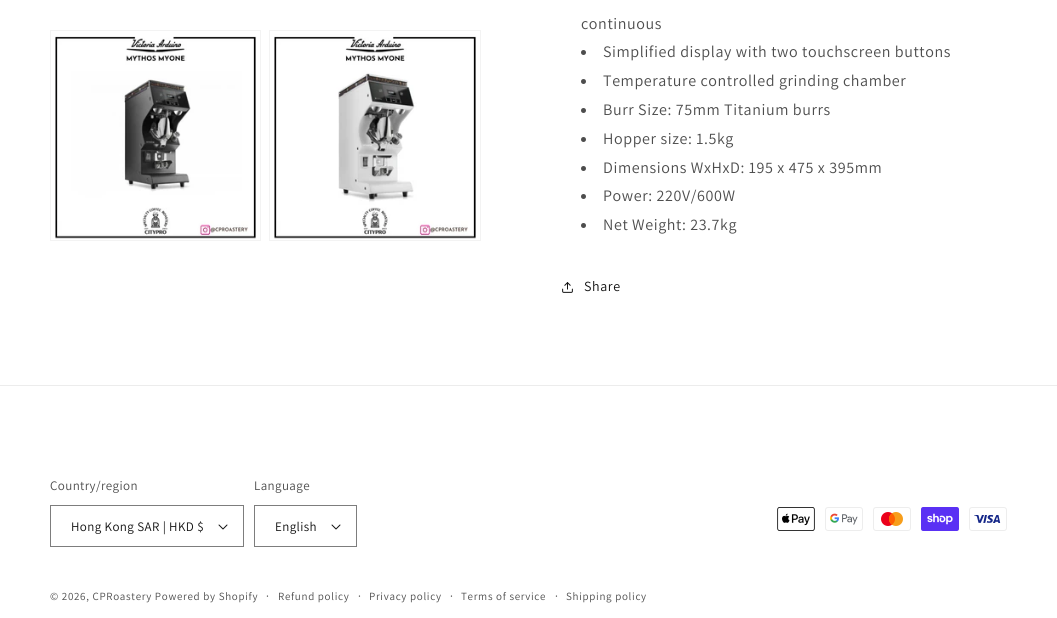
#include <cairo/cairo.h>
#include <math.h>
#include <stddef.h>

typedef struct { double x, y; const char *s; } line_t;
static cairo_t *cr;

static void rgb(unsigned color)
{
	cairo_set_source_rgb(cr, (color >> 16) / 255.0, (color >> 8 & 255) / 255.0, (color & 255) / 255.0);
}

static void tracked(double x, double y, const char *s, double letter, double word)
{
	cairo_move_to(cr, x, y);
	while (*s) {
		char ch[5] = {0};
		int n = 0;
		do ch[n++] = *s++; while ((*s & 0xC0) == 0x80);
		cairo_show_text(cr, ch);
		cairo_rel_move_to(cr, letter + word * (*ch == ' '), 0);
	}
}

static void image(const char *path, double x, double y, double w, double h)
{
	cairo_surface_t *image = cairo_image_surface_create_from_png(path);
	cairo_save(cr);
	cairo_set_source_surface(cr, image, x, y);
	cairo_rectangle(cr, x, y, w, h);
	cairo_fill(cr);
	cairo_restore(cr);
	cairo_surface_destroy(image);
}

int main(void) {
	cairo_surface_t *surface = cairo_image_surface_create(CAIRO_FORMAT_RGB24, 1057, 618);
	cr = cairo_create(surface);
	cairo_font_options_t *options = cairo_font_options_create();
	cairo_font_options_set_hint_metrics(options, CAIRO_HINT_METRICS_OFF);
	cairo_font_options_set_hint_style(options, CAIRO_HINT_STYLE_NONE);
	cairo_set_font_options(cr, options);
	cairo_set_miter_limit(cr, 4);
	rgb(0xffffff);
	cairo_paint(cr);
	cairo_rectangle(cr, 50.5, 30.5, 210, 210);
	rgb(0xf3f3f3);
	cairo_set_line_width(cr, 1);
	cairo_stroke(cr);
	image("img/1.png", 55, 36, 202, 203);
	cairo_rectangle(cr, 269.5, 30.5, 211, 210);
	cairo_stroke(cr);
	image("img/2.png", 274, 34, 203, 205);
	rgb(0x4d4d4d);
	cairo_arc(cr, 583.5, 52.5, 2.5, 0, 2 * M_PI);
	cairo_fill(cr);
	cairo_arc(cr, 583.5, 81.5, 2.5, 0, 2 * M_PI);
	cairo_fill(cr);
	cairo_arc(cr, 583.5, 110.5, 2.5, 0, 2 * M_PI);
	cairo_fill(cr);
	cairo_arc(cr, 583.5, 139.5, 2.5, 0, 2 * M_PI);
	cairo_fill(cr);
	cairo_arc(cr, 583.5, 168.5, 2.5, 0, 2 * M_PI);
	cairo_fill(cr);
	cairo_arc(cr, 583.5, 196.5, 2.5, 0, 2 * M_PI);
	cairo_fill(cr);
	cairo_arc(cr, 583.5, 225.5, 2.5, 0, 2 * M_PI);
	cairo_fill(cr);
	image("img/3.png", 562, 282, 11, 11);
	rgb(0xececec);
	cairo_rectangle(cr, 0, 385, 1057, 1);
	cairo_fill(cr);
	image("img/4.png", 218, 524, 10, 6);
	cairo_rectangle(cr, 50.5, 505.5, 193, 41);
	rgb(0x7d7d7d);
	cairo_stroke(cr);
	image("img/4.png", 331, 524, 10, 6);
	cairo_rectangle(cr, 254.5, 505.5, 102, 41);
	cairo_stroke(cr);
	image("img/5.png", 777, 507, 38, 24);
	image("img/6.png", 825, 507, 38, 24);
	image("img/7.png", 873, 507, 38, 24);
	image("img/8.png", 921, 507, 38, 24);
	image("img/9.png", 969, 507, 38, 24);
	cairo_select_font_face(cr, "Assistant", CAIRO_FONT_SLANT_NORMAL, CAIRO_FONT_WEIGHT_NORMAL);
	cairo_set_font_size(cr, 16);
	rgb(0x4d4d4d);
	{
		static const line_t items[] = {
			{581, 29, "continuous"},
			{603, 57, "Simplified display with two touchscreen buttons"},
			{603, 86, "Temperature controlled grinding chamber"},
			{603, 115, "Burr Size: 75mm Titanium burrs"},
			{603, 144, "Hopper size: 1.5kg"},
			{603, 173, "Dimensions WxHxD: 195 x 475 x 395mm"},
			{603, 201, "Power: 220V/600W"},
			{603, 230, "Net Weight: 23.7kg"},
		};
		for (size_t i = 0; i < sizeof items / sizeof *items; i++) {
			tracked(items[i].x, items[i].y, items[i].s, 0.6, 0);
		}
	}
	cairo_set_font_size(cr, 14);
	rgb(0x121212);
	tracked(584, 291, "Share", 0.6, 0);
	cairo_set_font_size(cr, 13);
	rgb(0x4d4d4d);
	tracked(50, 490, "Country/region", 0.4, 0);
	rgb(0x121212);
	tracked(71, 531, "Hong Kong SAR | HKD $", 0.4, 0);
	rgb(0x4d4d4d);
	tracked(254, 490, "Language", 0.4, 0);
	rgb(0x121212);
	tracked(275, 531, "English", 0.4, 0);
	cairo_set_font_size(cr, 11);
	rgb(0x4d4d4d);
	tracked(50, 600, "© 2026, CPRoastery Powered by Shopify", 0.7, 0);
	cairo_set_font_size(cr, 12);
	tracked(266, 600, "·", 0.7, 0);
	cairo_set_font_size(cr, 11);
	tracked(278, 600, "Refund policy", 0.7, 0);
	cairo_set_font_size(cr, 12);
	tracked(358, 600, "·", 0.7, 0);
	cairo_set_font_size(cr, 11);
	tracked(369, 600, "Privacy policy", 0.7, 0);
	cairo_set_font_size(cr, 12);
	tracked(450, 600, "·", 0.7, 0);
	cairo_set_font_size(cr, 11);
	tracked(461, 600, "Terms of service", 0.7, 0);
	cairo_set_font_size(cr, 12);
	tracked(555, 600, "·", 0.7, 0);
	cairo_set_font_size(cr, 11);
	tracked(566, 600, "Shipping policy", 0.7, 0);
	cairo_surface_write_to_png(surface, "page.png");
	cairo_font_options_destroy(options);
	cairo_destroy(cr);
	cairo_surface_destroy(surface);
	return 0;
}
